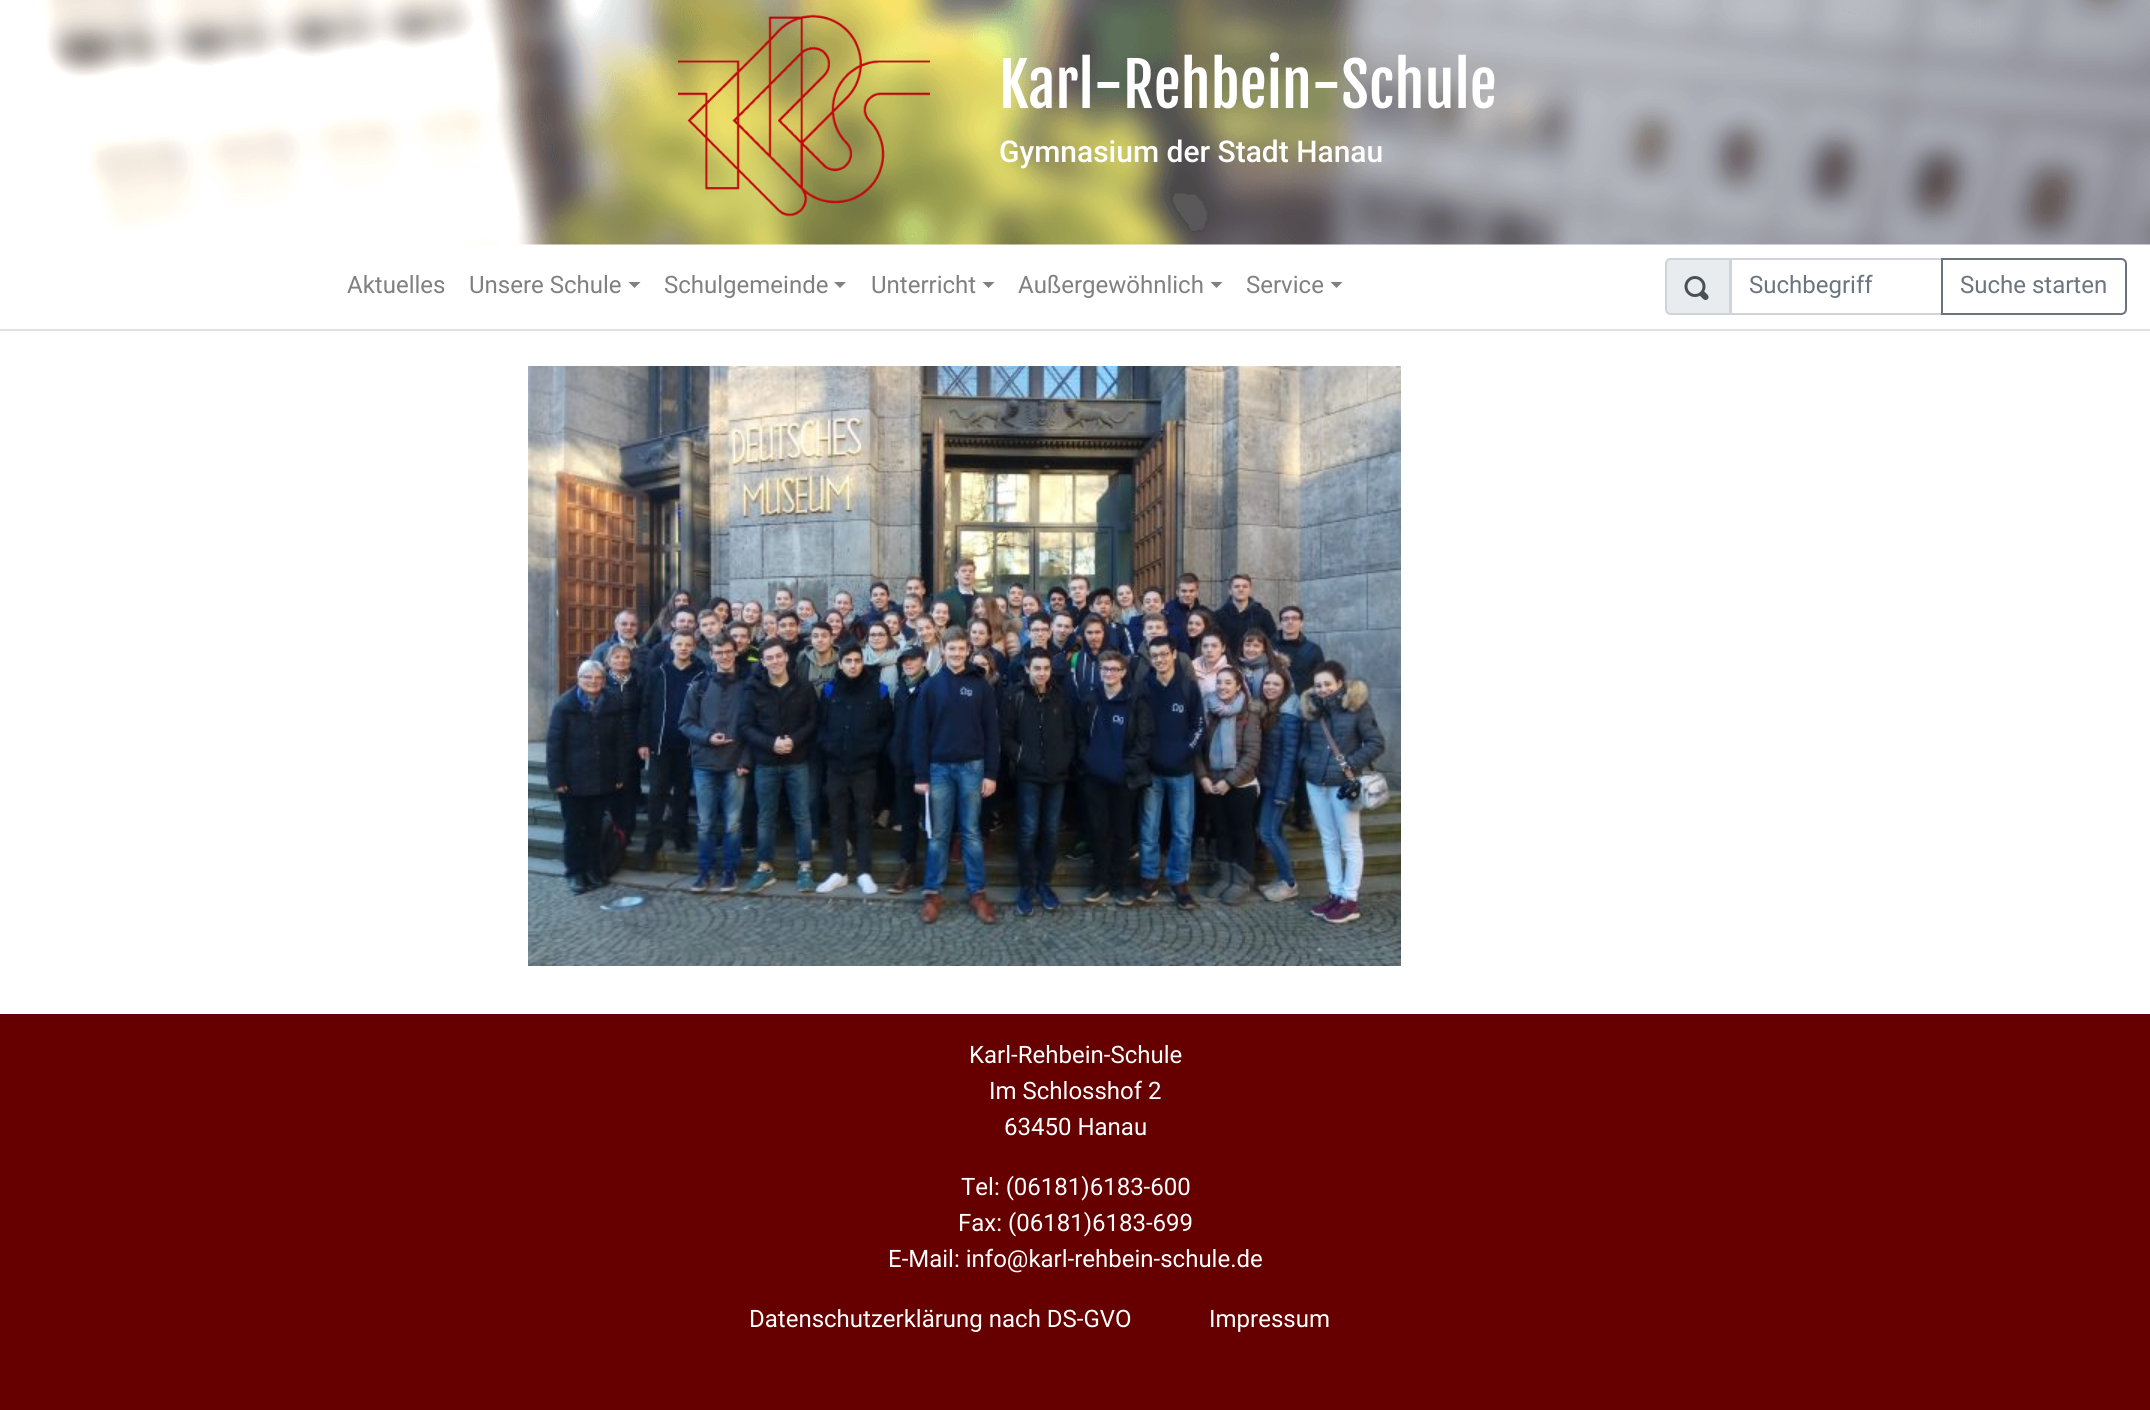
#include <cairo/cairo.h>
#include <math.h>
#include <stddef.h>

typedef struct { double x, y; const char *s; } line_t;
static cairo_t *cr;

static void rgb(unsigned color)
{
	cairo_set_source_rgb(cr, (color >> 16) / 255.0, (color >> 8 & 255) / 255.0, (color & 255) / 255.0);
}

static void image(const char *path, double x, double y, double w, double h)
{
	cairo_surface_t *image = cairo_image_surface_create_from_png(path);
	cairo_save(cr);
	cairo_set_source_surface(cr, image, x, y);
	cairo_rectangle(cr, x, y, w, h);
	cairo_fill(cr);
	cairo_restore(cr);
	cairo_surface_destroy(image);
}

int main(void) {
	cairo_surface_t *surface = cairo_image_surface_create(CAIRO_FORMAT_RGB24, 2150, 1410);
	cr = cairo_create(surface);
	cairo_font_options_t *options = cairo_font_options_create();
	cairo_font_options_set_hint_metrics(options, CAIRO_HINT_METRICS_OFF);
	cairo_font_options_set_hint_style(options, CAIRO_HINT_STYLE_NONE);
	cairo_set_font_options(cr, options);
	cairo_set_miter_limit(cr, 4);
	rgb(0xffffff);
	cairo_paint(cr);
	image("img/1.png", 43, 0, 2107, 245);
	image("img/2.png", 678, 14, 252, 203);
	rgb(0xdee2e6);
	cairo_rectangle(cr, 0, 329, 2150, 2);
	cairo_fill(cr);
	rgb(0x808080);
	cairo_new_path(cr);
	cairo_move_to(cr, 628.5, 282);
	cairo_line_to(cr, 640.5, 282);
	cairo_line_to(cr, 634.5, 288);
	cairo_close_path(cr);
	cairo_fill(cr);
	cairo_new_path(cr);
	cairo_move_to(cr, 834, 282);
	cairo_line_to(cr, 846, 282);
	cairo_line_to(cr, 840, 288);
	cairo_close_path(cr);
	cairo_fill(cr);
	cairo_new_path(cr);
	cairo_move_to(cr, 982.5, 282);
	cairo_line_to(cr, 994.5, 282);
	cairo_line_to(cr, 988.5, 288);
	cairo_close_path(cr);
	cairo_fill(cr);
	cairo_new_path(cr);
	cairo_move_to(cr, 1210.5, 282);
	cairo_line_to(cr, 1222.5, 282);
	cairo_line_to(cr, 1216.5, 288);
	cairo_close_path(cr);
	cairo_fill(cr);
	cairo_new_path(cr);
	cairo_move_to(cr, 1330.5, 282);
	cairo_line_to(cr, 1342.5, 282);
	cairo_line_to(cr, 1336.5, 288);
	cairo_close_path(cr);
	cairo_fill(cr);
	rgb(0xe9ecef);
	cairo_new_path(cr);
	cairo_move_to(cr, 1671, 259);
	cairo_line_to(cr, 1730, 259);
	cairo_line_to(cr, 1730, 314);
	cairo_line_to(cr, 1671, 314);
	cairo_curve_to(cr, 1668, 314, 1666, 312, 1666, 309);
	cairo_line_to(cr, 1666, 264);
	cairo_curve_to(cr, 1666, 261, 1668, 259, 1671, 259);
	cairo_close_path(cr);
	cairo_fill_preserve(cr);
	rgb(0xced4da);
	cairo_stroke(cr);
	image("img/3.png", 1684, 276, 25, 24);
	cairo_rectangle(cr, 1731, 259, 211, 55);
	cairo_stroke(cr);
	cairo_new_path(cr);
	cairo_move_to(cr, 1942, 259);
	cairo_line_to(cr, 2121, 259);
	cairo_curve_to(cr, 2124, 259, 2126, 261, 2126, 264);
	cairo_line_to(cr, 2126, 309);
	cairo_curve_to(cr, 2126, 312, 2124, 314, 2121, 314);
	cairo_line_to(cr, 1942, 314);
	cairo_close_path(cr);
	rgb(0x6c757d);
	cairo_stroke(cr);
	image("img/4.png", 528, 366, 873, 600);
	rgb(0x660000);
	cairo_rectangle(cr, 0, 1014, 2150, 396);
	cairo_fill(cr);
	cairo_select_font_face(cr, "Fjalla One", CAIRO_FONT_SLANT_NORMAL, CAIRO_FONT_WEIGHT_NORMAL);
	cairo_set_font_size(cr, 60);
	rgb(0xffffff);
	cairo_move_to(cr, 999, 108);
	cairo_show_text(cr, "Karl-Rehbein-Schule");
	cairo_select_font_face(cr, "Roboto Medium", CAIRO_FONT_SLANT_NORMAL, CAIRO_FONT_WEIGHT_NORMAL);
	cairo_set_font_size(cr, 30);
	cairo_move_to(cr, 999, 162);
	cairo_show_text(cr, "Gymnasium der Stadt Hanau");
	cairo_select_font_face(cr, "Roboto", CAIRO_FONT_SLANT_NORMAL, CAIRO_FONT_WEIGHT_NORMAL);
	cairo_set_font_size(cr, 24);
	rgb(0x808080);
	{
		static const line_t items[] = {
			{347, 293, "Aktuelles"},
			{469, 293, "Unsere Schule"},
			{664, 293, "Schulgemeinde"},
			{871, 293, "Unterricht"},
			{1018, 293, "Außergewöhnlich"},
			{1246, 293, "Service"},
		};
		for (size_t i = 0; i < sizeof items / sizeof *items; i++) {
			cairo_move_to(cr, items[i].x, items[i].y);
			cairo_show_text(cr, items[i].s);
		}
	}
	rgb(0x6c757d);
	cairo_move_to(cr, 1749, 293);
	cairo_show_text(cr, "Suchbegriff");
	cairo_move_to(cr, 1960, 293);
	cairo_show_text(cr, "Suche starten");
	rgb(0xffffff);
	{
		static const line_t items[] = {
			{969, 1063, "Karl-Rehbein-Schule"},
			{989, 1099, "Im Schlosshof 2"},
			{1004, 1135, "63450 Hanau"},
			{961, 1195, "Tel: (06181)6183-600"},
			{958, 1231, "Fax: (06181)6183-699"},
			{888, 1267, "E-Mail: info@karl-rehbein-schule.de"},
			{749, 1327, "Datenschutzerklärung nach DS-GVO"},
			{1209, 1327, "Impressum"},
		};
		for (size_t i = 0; i < sizeof items / sizeof *items; i++) {
			cairo_move_to(cr, items[i].x, items[i].y);
			cairo_show_text(cr, items[i].s);
		}
	}
	cairo_surface_write_to_png(surface, "page.png");
	cairo_font_options_destroy(options);
	cairo_destroy(cr);
	cairo_surface_destroy(surface);
	return 0;
}
